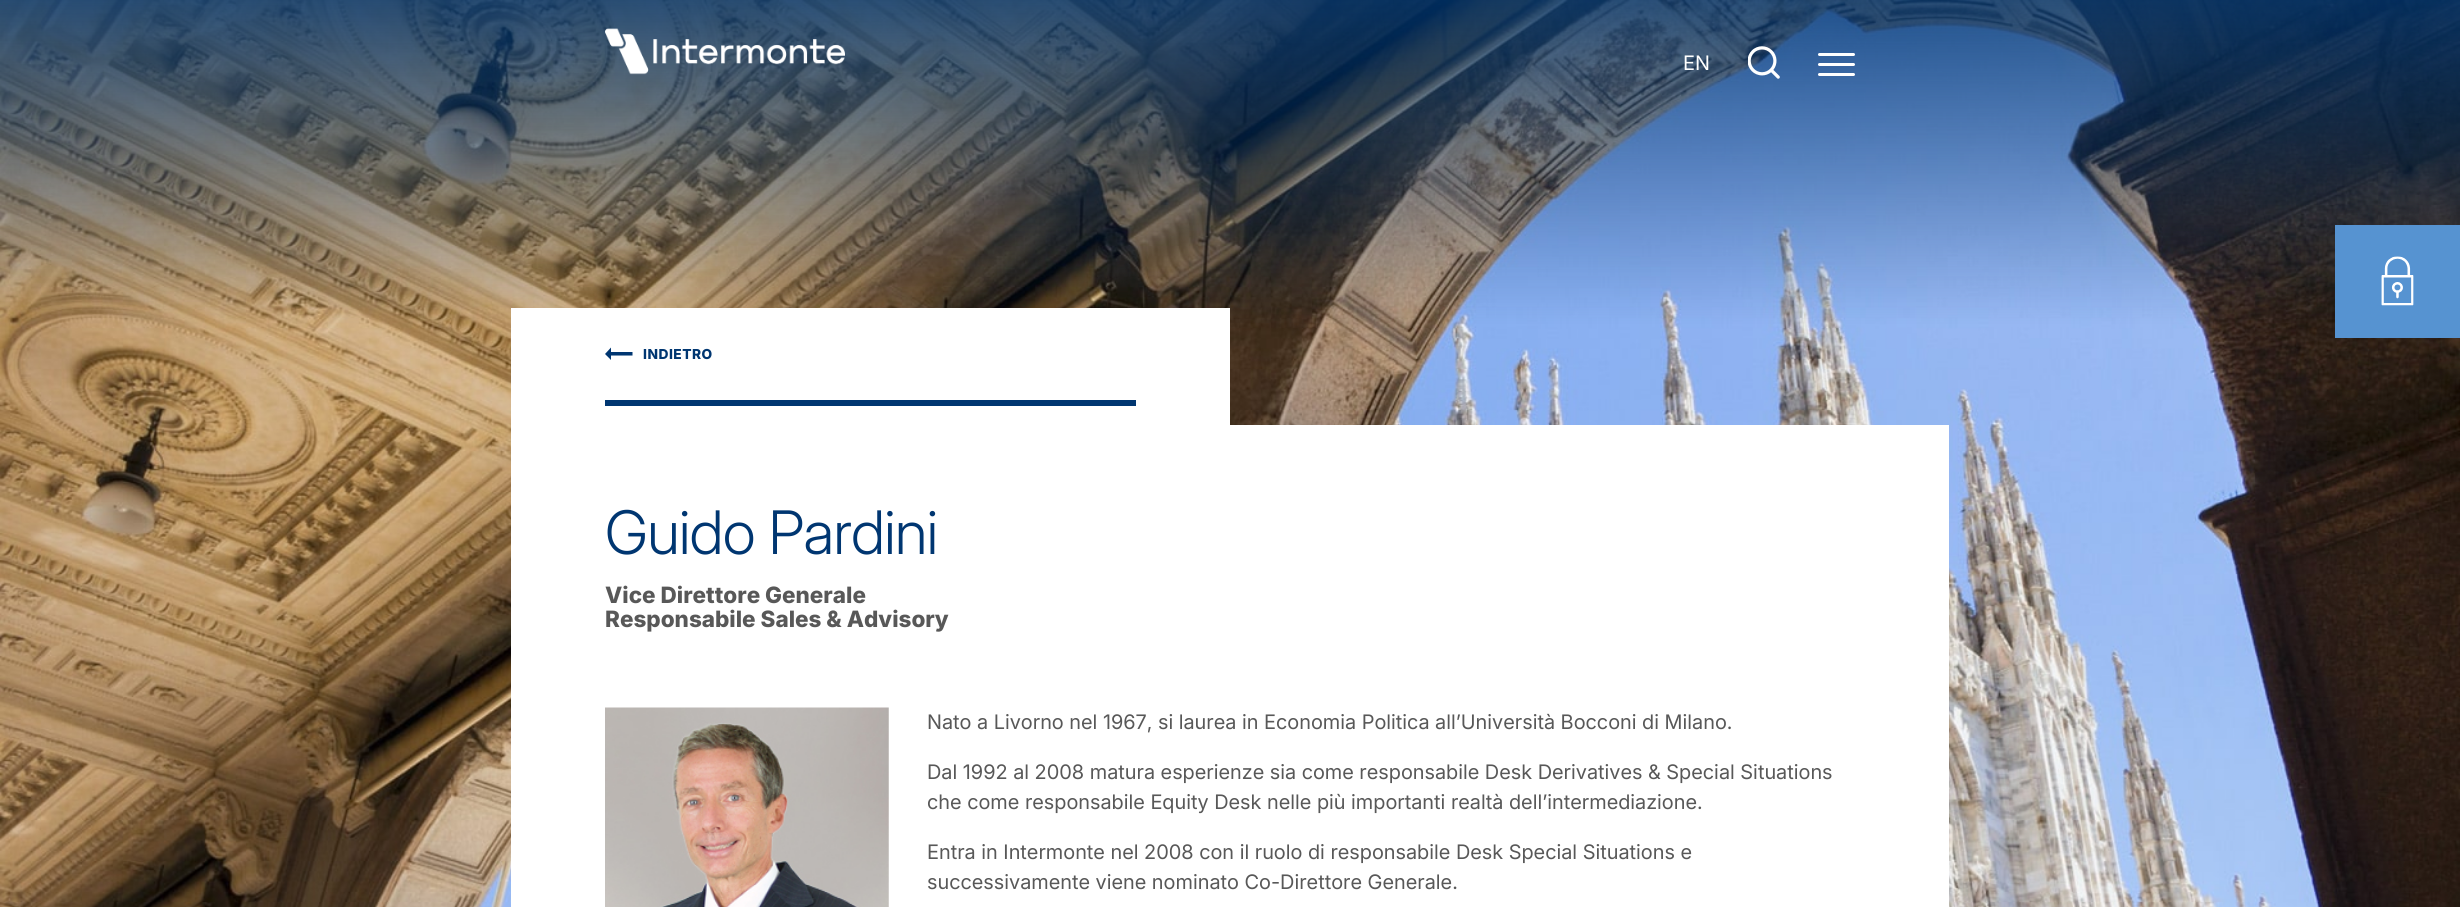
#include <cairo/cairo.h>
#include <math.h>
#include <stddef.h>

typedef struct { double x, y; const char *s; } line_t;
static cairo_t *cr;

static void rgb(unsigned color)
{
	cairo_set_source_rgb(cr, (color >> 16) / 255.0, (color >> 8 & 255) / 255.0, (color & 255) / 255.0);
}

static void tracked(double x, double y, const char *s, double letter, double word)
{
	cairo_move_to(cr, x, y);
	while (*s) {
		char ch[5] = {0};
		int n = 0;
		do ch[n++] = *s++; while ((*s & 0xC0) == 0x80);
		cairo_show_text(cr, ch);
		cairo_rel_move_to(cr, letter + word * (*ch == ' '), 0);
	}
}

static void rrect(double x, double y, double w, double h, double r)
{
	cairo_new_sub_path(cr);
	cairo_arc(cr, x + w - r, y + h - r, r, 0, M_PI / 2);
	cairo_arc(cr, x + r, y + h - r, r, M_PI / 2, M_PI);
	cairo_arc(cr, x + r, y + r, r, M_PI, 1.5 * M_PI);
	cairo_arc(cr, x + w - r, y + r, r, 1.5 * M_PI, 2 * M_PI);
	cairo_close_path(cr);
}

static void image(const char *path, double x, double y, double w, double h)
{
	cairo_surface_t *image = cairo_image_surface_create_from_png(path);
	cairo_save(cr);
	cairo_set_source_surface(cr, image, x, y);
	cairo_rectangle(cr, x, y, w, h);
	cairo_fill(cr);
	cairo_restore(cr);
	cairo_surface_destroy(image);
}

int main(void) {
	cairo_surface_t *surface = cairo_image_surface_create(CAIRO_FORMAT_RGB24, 2460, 907);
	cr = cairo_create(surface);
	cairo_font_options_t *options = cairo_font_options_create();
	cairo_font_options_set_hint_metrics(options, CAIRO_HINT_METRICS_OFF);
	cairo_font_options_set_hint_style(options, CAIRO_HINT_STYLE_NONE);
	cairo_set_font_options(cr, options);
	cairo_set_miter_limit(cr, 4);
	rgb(0xffffff);
	cairo_paint(cr);
	image("img/1.png", 0, 0, 2460, 907);
	image("img/2.png", 605, 28, 240, 47);
	image("img/3.png", 1748, 46, 32, 33);
	rgb(0xffffff);
	rrect(1818, 63, 37, 3, 1.5);
	cairo_fill(cr);
	rrect(1818, 53, 37, 3, 1.5);
	cairo_fill(cr);
	rrect(1818, 73, 37, 3, 1.5);
	cairo_fill(cr);
	rgb(0x5693d1);
	cairo_rectangle(cr, 2335, 225, 125, 113);
	cairo_fill(cr);
	image("img/4.png", 2381, 256, 33, 50);
	rgb(0xffffff);
	cairo_rectangle(cr, 511, 308, 719, 117);
	cairo_fill(cr);
	rgb(0x003671);
	cairo_new_path(cr);
	cairo_move_to(cr, 611, 347.5);
	cairo_line_to(cr, 611, 352);
	cairo_line_to(cr, 632.5, 352);
	cairo_line_to(cr, 632.5, 355.5);
	cairo_line_to(cr, 611, 355.5);
	cairo_line_to(cr, 611, 360);
	cairo_line_to(cr, 605, 354);
	cairo_close_path(cr);
	cairo_fill(cr);
	cairo_rectangle(cr, 605, 400, 531, 6);
	cairo_fill(cr);
	rgb(0xffffff);
	cairo_rectangle(cr, 511, 425, 1438, 482);
	cairo_fill(cr);
	image("img/5.png", 605, 707, 284, 200);
	cairo_select_font_face(cr, "Inter", CAIRO_FONT_SLANT_NORMAL, CAIRO_FONT_WEIGHT_NORMAL);
	cairo_set_font_size(cr, 20);
	cairo_move_to(cr, 1683, 70);
	cairo_show_text(cr, "EN");
	cairo_select_font_face(cr, "Inter ExtraBold", CAIRO_FONT_SLANT_NORMAL, CAIRO_FONT_WEIGHT_NORMAL);
	cairo_set_font_size(cr, 13.75);
	rgb(0x003671);
	tracked(643, 359, "INDIETRO", 0.5, 0);
	cairo_select_font_face(cr, "Inter Light", CAIRO_FONT_SLANT_NORMAL, CAIRO_FONT_WEIGHT_NORMAL);
	cairo_set_font_size(cr, 60);
	tracked(605, 554, "Guido Pardini", -0.5, 0);
	cairo_select_font_face(cr, "Inter ExtraBold", CAIRO_FONT_SLANT_NORMAL, CAIRO_FONT_WEIGHT_NORMAL);
	cairo_set_font_size(cr, 22.5);
	rgb(0x585858);
	cairo_move_to(cr, 605, 603);
	cairo_show_text(cr, "Vice Direttore Generale");
	cairo_move_to(cr, 605, 627);
	cairo_show_text(cr, "Responsabile Sales & Advisory");
	cairo_select_font_face(cr, "Inter", CAIRO_FONT_SLANT_NORMAL, CAIRO_FONT_WEIGHT_NORMAL);
	cairo_set_font_size(cr, 20);
	{
		static const line_t items[] = {
			{927, 729, "Nato a Livorno nel 1967, si laurea in Economia Politica all’Università Bocconi di Milano."},
			{927, 779, "Dal 1992 al 2008 matura esperienze sia come responsabile Desk Derivatives & Special Situations"},
			{927, 809, "che come responsabile Equity Desk nelle più importanti realtà dell’intermediazione."},
			{927, 859, "Entra in Intermonte nel 2008 con il ruolo di responsabile Desk Special Situations e"},
			{927, 889, "successivamente viene nominato Co-Direttore Generale."},
		};
		for (size_t i = 0; i < sizeof items / sizeof *items; i++) {
			cairo_move_to(cr, items[i].x, items[i].y);
			cairo_show_text(cr, items[i].s);
		}
	}
	cairo_surface_write_to_png(surface, "page.png");
	cairo_font_options_destroy(options);
	cairo_destroy(cr);
	cairo_surface_destroy(surface);
	return 0;
}
